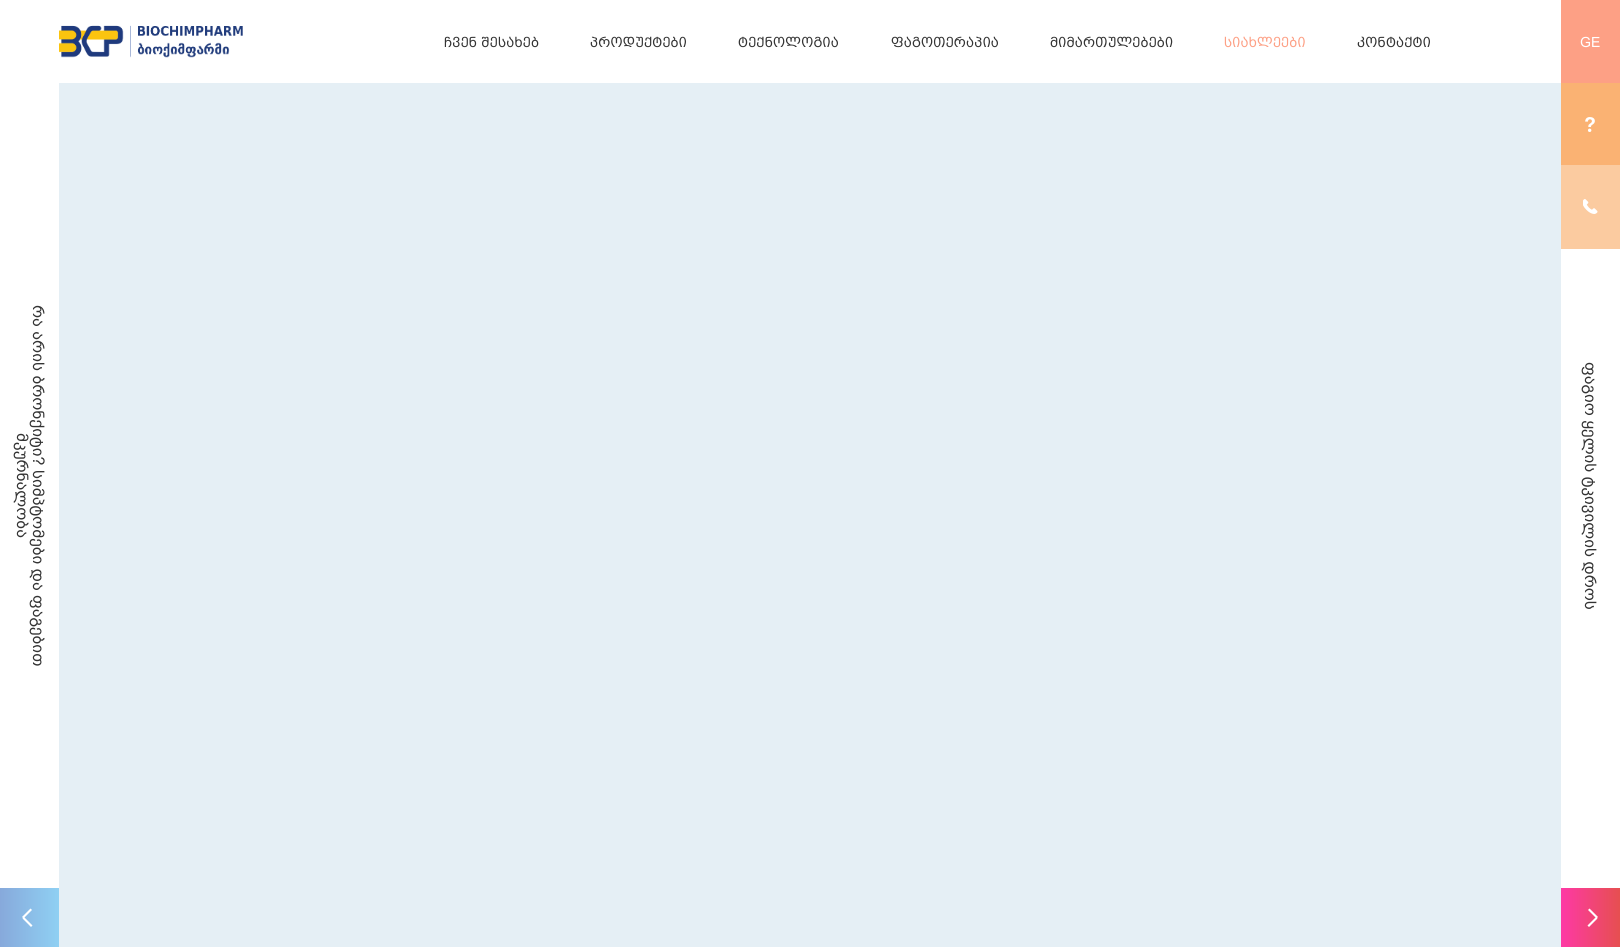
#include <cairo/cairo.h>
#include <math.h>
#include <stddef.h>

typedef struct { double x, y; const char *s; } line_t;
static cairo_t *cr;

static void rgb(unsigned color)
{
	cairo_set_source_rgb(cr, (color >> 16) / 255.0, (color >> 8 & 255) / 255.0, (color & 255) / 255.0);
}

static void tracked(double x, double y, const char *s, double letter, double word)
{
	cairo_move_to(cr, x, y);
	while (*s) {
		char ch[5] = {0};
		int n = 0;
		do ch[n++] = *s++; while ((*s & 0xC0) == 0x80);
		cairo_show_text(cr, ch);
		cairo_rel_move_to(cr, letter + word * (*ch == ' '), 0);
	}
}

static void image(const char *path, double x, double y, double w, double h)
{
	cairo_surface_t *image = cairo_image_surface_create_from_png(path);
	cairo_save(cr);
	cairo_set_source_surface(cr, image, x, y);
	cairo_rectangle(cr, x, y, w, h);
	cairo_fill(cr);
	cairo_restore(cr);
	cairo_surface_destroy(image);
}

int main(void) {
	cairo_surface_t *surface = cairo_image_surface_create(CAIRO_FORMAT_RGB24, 1620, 947);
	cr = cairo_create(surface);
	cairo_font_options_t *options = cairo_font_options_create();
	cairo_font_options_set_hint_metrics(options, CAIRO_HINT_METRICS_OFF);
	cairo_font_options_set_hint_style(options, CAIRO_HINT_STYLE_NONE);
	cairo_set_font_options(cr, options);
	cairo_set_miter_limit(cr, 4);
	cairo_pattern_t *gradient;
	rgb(0xffffff);
	cairo_paint(cr);
	image("img/1.png", 59, 25, 184, 33);
	rgb(0xfda085);
	cairo_rectangle(cr, 1561, 0, 59, 83);
	cairo_fill(cr);
	rgb(0xfab273);
	cairo_rectangle(cr, 1561, 83, 59, 82);
	cairo_fill(cr);
	image("img/2.png", 1585, 117, 10, 15);
	rgb(0xfbcba0);
	cairo_rectangle(cr, 1561, 165, 59, 84);
	cairo_fill(cr);
	image("img/3.png", 1583, 199, 15, 15);
	gradient = cairo_pattern_create_linear(1620, 918, 1561, 918);
	cairo_pattern_add_color_stop_rgba(gradient, 0, 0.902, 0.31, 0.314, 1);
	cairo_pattern_add_color_stop_rgba(gradient, 1, 0.996, 0.224, 0.647, 1);
	cairo_set_source(cr, gradient);
	cairo_pattern_destroy(gradient);
	cairo_rectangle(cr, 1561, 888, 59, 59);
	cairo_fill(cr);
	rgb(0xffffff);
	cairo_new_path(cr);
	cairo_move_to(cr, 1587.5, 925.5);
	cairo_line_to(cr, 1596, 917);
	cairo_line_to(cr, 1597.5, 918.5);
	cairo_line_to(cr, 1589, 927);
	cairo_close_path(cr);
	cairo_fill(cr);
	cairo_new_path(cr);
	cairo_move_to(cr, 1589.5, 908.5);
	cairo_line_to(cr, 1598, 917);
	cairo_line_to(cr, 1596.5, 918.5);
	cairo_line_to(cr, 1588, 910);
	cairo_close_path(cr);
	cairo_fill(cr);
	gradient = cairo_pattern_create_linear(59, 918, 0, 918);
	cairo_pattern_add_color_stop_rgba(gradient, 0, 0.561, 0.816, 0.953, 1);
	cairo_pattern_add_color_stop_rgba(gradient, 1, 0.529, 0.663, 0.859, 1);
	cairo_set_source(cr, gradient);
	cairo_pattern_destroy(gradient);
	cairo_rectangle(cr, 0, 888, 59, 59);
	cairo_fill(cr);
	rgb(0xffffff);
	cairo_new_path(cr);
	cairo_move_to(cr, 22, 917);
	cairo_line_to(cr, 30.5, 908.5);
	cairo_line_to(cr, 32, 910);
	cairo_line_to(cr, 23.5, 918.5);
	cairo_close_path(cr);
	cairo_fill(cr);
	cairo_new_path(cr);
	cairo_move_to(cr, 24, 917);
	cairo_line_to(cr, 32.5, 925.5);
	cairo_line_to(cr, 31, 927);
	cairo_line_to(cr, 22.5, 918.5);
	cairo_close_path(cr);
	cairo_fill(cr);
	rgb(0xe5eff5);
	cairo_rectangle(cr, 59, 83, 1502, 864);
	cairo_fill(cr);
	cairo_select_font_face(cr, "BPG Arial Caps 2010", CAIRO_FONT_SLANT_NORMAL, CAIRO_FONT_WEIGHT_NORMAL);
	cairo_set_font_size(cr, 14);
	rgb(0x333333);
	{
		static const line_t items[] = {
			{444, 47, "ჩვენ შესახებ"},
			{590, 47, "პროდუქტები"},
			{738, 47, "ტექნოლოგია"},
			{891, 47, "ფაგოთერაპია"},
			{1050, 47, "მიმართულებები"},
		};
		for (size_t i = 0; i < sizeof items / sizeof *items; i++) {
			tracked(items[i].x, items[i].y, items[i].s, 0.25, 0);
		}
	}
	rgb(0xfda085);
	tracked(1224, 47, "სიახლეები", 0.25, 0);
	rgb(0x333333);
	tracked(1357, 47, "კონტაქტი", 0.25, 0);
	rgb(0xffffff);
	cairo_move_to(cr, 1580, 47);
	cairo_show_text(cr, "GE");
	cairo_select_font_face(cr, "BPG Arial", CAIRO_FONT_SLANT_NORMAL, CAIRO_FONT_WEIGHT_NORMAL);
	cairo_set_font_size(cr, 16);
	rgb(0x333333);
	cairo_save(cr);
	cairo_translate(cr, 1585, 362);
	cairo_rotate(cr, 90 * M_PI / 180);
	cairo_move_to(cr, 0, 0);
	cairo_show_text(cr, "ფაგიო ყელის ტკივილის დროს");
	cairo_restore(cr);
	cairo_save(cr);
	cairo_translate(cr, 17, 433);
	cairo_rotate(cr, 90 * M_PI / 180);
	cairo_move_to(cr, 0, 0);
	cairo_show_text(cr, "მკურნალობა");
	cairo_restore(cr);
	cairo_save(cr);
	cairo_translate(cr, 33, 305);
	cairo_rotate(cr, 90 * M_PI / 180);
	cairo_move_to(cr, 0, 0);
	cairo_show_text(cr, "რა არის ბრონქიტი? სიმპტომები და ფაგებით");
	cairo_restore(cr);
	cairo_surface_write_to_png(surface, "page.png");
	cairo_font_options_destroy(options);
	cairo_destroy(cr);
	cairo_surface_destroy(surface);
	return 0;
}
